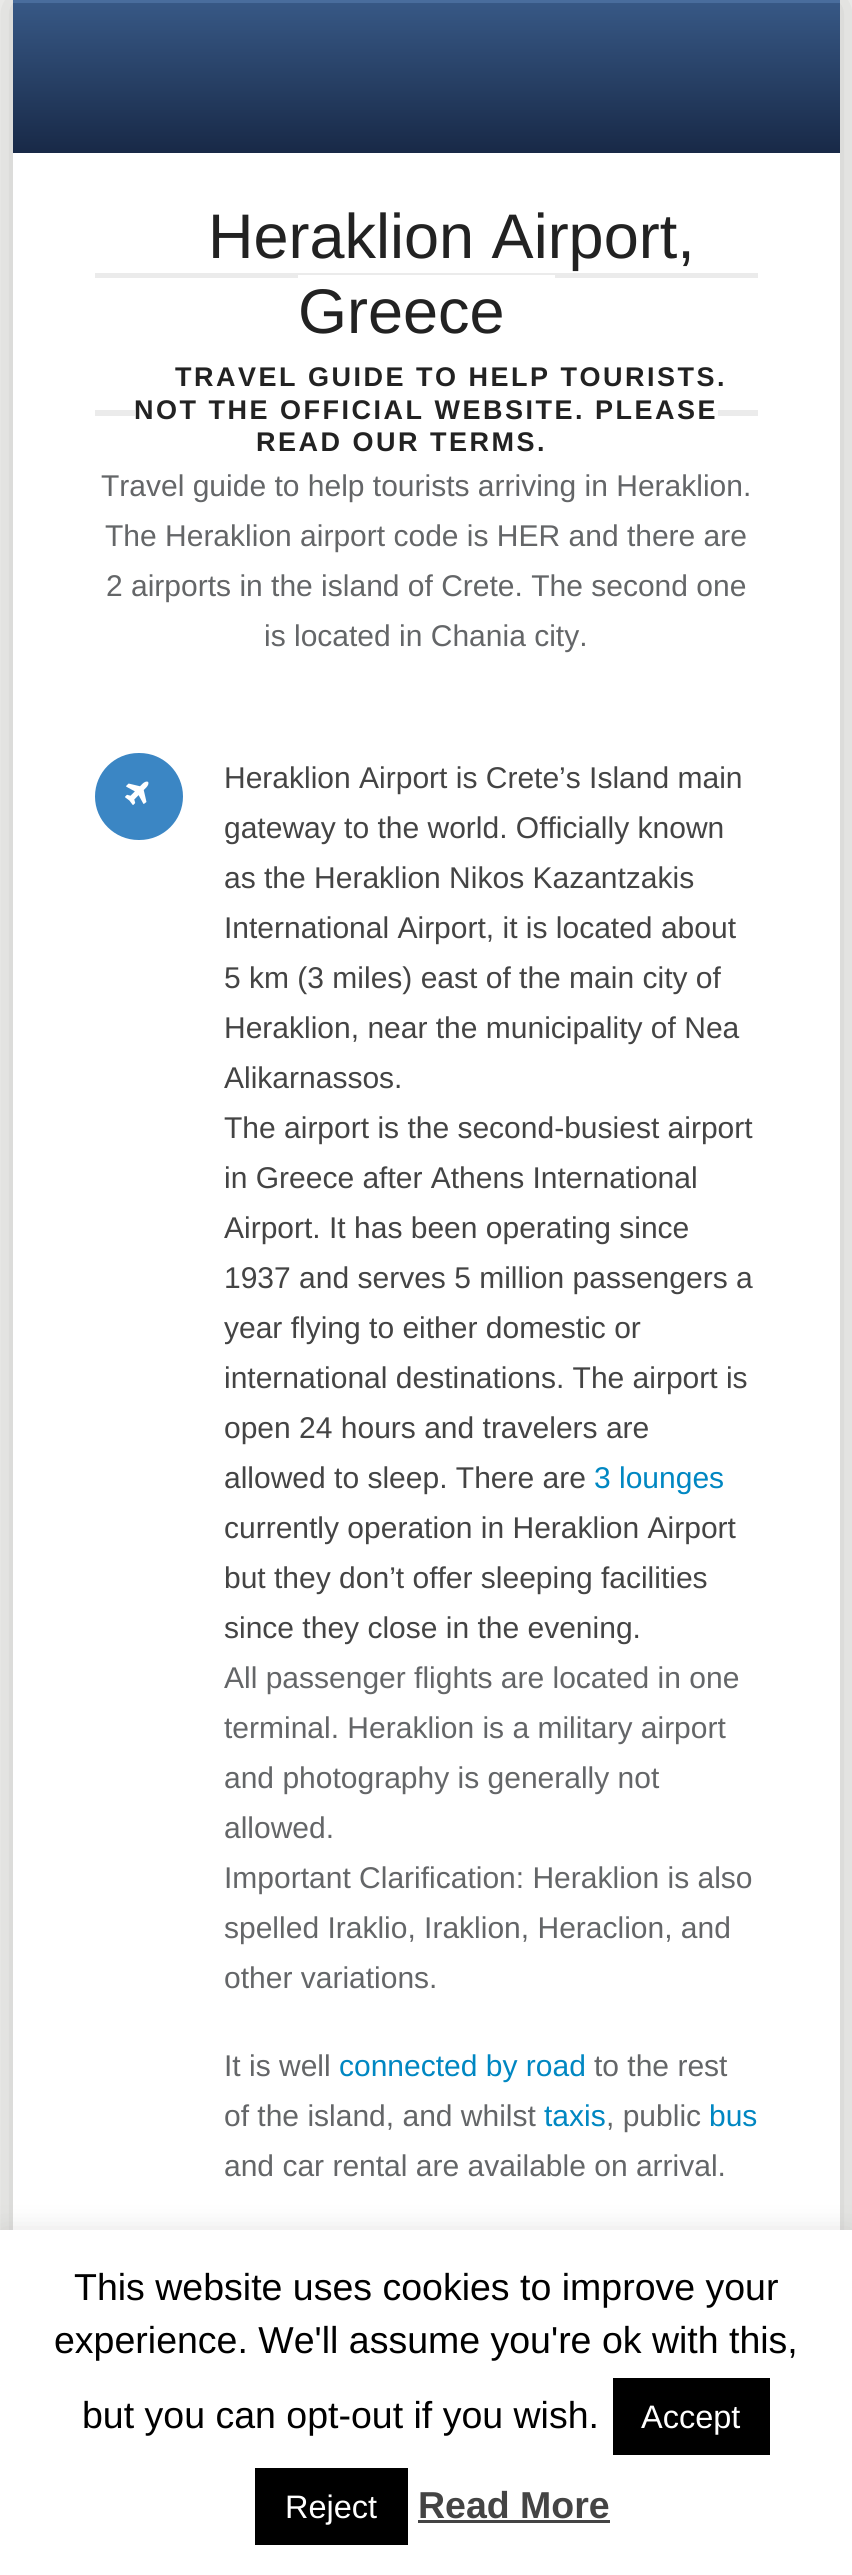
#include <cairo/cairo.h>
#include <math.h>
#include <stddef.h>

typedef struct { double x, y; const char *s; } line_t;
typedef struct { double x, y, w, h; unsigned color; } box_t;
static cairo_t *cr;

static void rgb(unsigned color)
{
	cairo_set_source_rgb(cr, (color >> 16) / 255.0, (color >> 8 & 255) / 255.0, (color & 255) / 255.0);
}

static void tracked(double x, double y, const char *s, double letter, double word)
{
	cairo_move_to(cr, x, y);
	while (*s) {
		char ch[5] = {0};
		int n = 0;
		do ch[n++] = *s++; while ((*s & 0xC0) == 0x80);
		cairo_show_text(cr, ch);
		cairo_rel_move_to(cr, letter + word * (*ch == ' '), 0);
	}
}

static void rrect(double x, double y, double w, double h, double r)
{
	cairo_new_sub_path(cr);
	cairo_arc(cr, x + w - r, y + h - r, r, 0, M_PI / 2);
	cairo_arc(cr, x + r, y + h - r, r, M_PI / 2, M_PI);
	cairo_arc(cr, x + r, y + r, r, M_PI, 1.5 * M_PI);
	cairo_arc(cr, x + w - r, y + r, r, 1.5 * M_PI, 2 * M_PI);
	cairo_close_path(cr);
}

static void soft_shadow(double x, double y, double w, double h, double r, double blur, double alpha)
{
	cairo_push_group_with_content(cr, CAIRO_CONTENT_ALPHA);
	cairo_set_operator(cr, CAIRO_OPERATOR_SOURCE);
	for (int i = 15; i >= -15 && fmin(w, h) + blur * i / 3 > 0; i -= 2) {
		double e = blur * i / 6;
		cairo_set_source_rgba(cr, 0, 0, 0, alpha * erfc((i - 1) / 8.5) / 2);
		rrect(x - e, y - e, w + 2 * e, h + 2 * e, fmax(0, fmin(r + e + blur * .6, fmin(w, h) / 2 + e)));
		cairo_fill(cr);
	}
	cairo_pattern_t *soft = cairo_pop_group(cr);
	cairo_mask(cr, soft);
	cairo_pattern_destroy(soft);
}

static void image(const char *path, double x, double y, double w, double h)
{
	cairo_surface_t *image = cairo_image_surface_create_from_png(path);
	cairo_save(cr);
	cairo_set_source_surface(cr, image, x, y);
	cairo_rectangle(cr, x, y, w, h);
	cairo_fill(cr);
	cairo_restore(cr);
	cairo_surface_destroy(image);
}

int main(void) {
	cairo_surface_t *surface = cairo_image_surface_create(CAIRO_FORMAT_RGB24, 852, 2575);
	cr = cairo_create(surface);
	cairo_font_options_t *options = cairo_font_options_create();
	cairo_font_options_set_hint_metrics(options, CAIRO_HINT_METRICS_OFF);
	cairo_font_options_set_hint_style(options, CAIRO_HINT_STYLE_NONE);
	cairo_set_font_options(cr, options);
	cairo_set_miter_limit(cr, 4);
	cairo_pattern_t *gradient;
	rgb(0xf4f4f2);
	cairo_paint(cr);
	rgb(0x000000);
	soft_shadow(13, 0, 827, 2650, 0, 25, 0.2);
	gradient = cairo_pattern_create_linear(426, 2.5, 426, 153);
	cairo_pattern_add_color_stop_rgba(gradient, 0, 0.216, 0.345, 0.522, 1);
	cairo_pattern_add_color_stop_rgba(gradient, 1, 0.094, 0.161, 0.278, 1);
	cairo_set_source(cr, gradient);
	cairo_pattern_destroy(gradient);
	cairo_rectangle(cr, 13, 3, 827, 150);
	cairo_fill(cr);
	{
		static const box_t items[] = {
			{13, 0, 827, 3, 0x496d9d},
			{13, 153, 827, 2077, 0xffffff},
			{95, 273, 663, 5, 0xebebeb},
			{298, 275, 257, 3, 0xffffff},
			{95, 410, 663, 6, 0xebebeb},
			{135, 410, 583, 6, 0xffffff},
		};
		for (size_t i = 0; i < sizeof items / sizeof *items; i++) {
			rgb(items[i].color);
			cairo_rectangle(cr, items[i].x, items[i].y, items[i].w, items[i].h);
			cairo_fill(cr);
		}
	}
	rgb(0x3b86c4);
	rrect(95, 753, 88, 87, 43.5);
	cairo_fill(cr);
	image("img/1.png", 125, 781, 24, 24);
	rgb(0xacabab);
	soft_shadow(0, 2228, 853, 345, 0, 12.5, 0.3);
	{
		static const box_t items[] = {
			{0, 2230, 852, 345, 0xffffff},
			{613, 2378, 157, 77, 0x000000},
			{255, 2468, 153, 77, 0x000000},
			{418, 2520, 192, 3, 0x444444},
		};
		for (size_t i = 0; i < sizeof items / sizeof *items; i++) {
			rgb(items[i].color);
			cairo_rectangle(cr, items[i].x, items[i].y, items[i].w, items[i].h);
			cairo_fill(cr);
		}
	}
	cairo_select_font_face(cr, "Liberation Sans", CAIRO_FONT_SLANT_NORMAL, CAIRO_FONT_WEIGHT_NORMAL);
	cairo_set_font_size(cr, 63);
	rgb(0x222222);
	cairo_move_to(cr, 208, 258);
	cairo_show_text(cr, "Heraklion Airport,");
	cairo_move_to(cr, 298, 333);
	cairo_show_text(cr, "Greece");
	cairo_select_font_face(cr, "Liberation Sans", CAIRO_FONT_SLANT_NORMAL, CAIRO_FONT_WEIGHT_BOLD);
	cairo_set_font_size(cr, 27);
	{
		static const line_t items[] = {
			{175, 386, "TRAVEL GUIDE TO HELP TOURISTS."},
			{134, 419, "NOT THE OFFICIAL WEBSITE. PLEASE"},
			{256, 451, "READ OUR TERMS."},
		};
		for (size_t i = 0; i < sizeof items / sizeof *items; i++) {
			tracked(items[i].x, items[i].y, items[i].s, 2.5, 0);
		}
	}
	cairo_select_font_face(cr, "Liberation Sans", CAIRO_FONT_SLANT_NORMAL, CAIRO_FONT_WEIGHT_NORMAL);
	cairo_set_font_size(cr, 30);
	rgb(0x646668);
	{
		static const line_t items[] = {
			{101, 496, "Travel guide to help tourists arriving in Heraklion."},
			{105, 546, "The Heraklion airport code is HER and there are"},
			{106, 596, "2 airports in the island of Crete. The second one"},
			{264, 646, "is located in Chania city."},
		};
		for (size_t i = 0; i < sizeof items / sizeof *items; i++) {
			cairo_move_to(cr, items[i].x, items[i].y);
			cairo_show_text(cr, items[i].s);
		}
	}
	rgb(0x444444);
	{
		static const line_t items[] = {
			{224, 788, "Heraklion Airport is Crete’s Island main"},
			{224, 838, "gateway to the world. Officially known"},
			{224, 888, "as the Heraklion Nikos Kazantzakis"},
			{224, 938, "International Airport, it is located about"},
			{224, 988, "5 km (3 miles) east of the main city of"},
			{224, 1038, "Heraklion, near the municipality of Nea"},
			{224, 1088, "Alikarnassos."},
			{224, 1138, "The airport is the second-busiest airport"},
			{224, 1188, "in Greece after Athens International"},
			{224, 1238, "Airport. It has been operating since"},
			{224, 1288, "1937 and serves 5 million passengers a"},
			{224, 1338, "year flying to either domestic or"},
			{224, 1388, "international destinations. The airport is"},
			{224, 1438, "open 24 hours and travelers are"},
			{224, 1488, "allowed to sleep. There are"},
		};
		for (size_t i = 0; i < sizeof items / sizeof *items; i++) {
			cairo_move_to(cr, items[i].x, items[i].y);
			cairo_show_text(cr, items[i].s);
		}
	}
	rgb(0x0087c2);
	cairo_move_to(cr, 594, 1488);
	cairo_show_text(cr, "3 lounges");
	rgb(0x444444);
	{
		static const line_t items[] = {
			{224, 1538, "currently operation in Heraklion Airport"},
			{224, 1588, "but they don’t offer sleeping facilities"},
			{224, 1638, "since they close in the evening."},
		};
		for (size_t i = 0; i < sizeof items / sizeof *items; i++) {
			cairo_move_to(cr, items[i].x, items[i].y);
			cairo_show_text(cr, items[i].s);
		}
	}
	rgb(0x646668);
	{
		static const line_t items[] = {
			{224, 1688, "All passenger flights are located in one"},
			{224, 1738, "terminal. Heraklion is a military airport"},
			{224, 1788, "and photography is generally not"},
			{224, 1838, "allowed."},
			{224, 1888, "Important Clarification: Heraklion is also"},
			{224, 1938, "spelled Iraklio, Iraklion, Heraclion, and"},
			{224, 1988, "other variations."},
			{224, 2076, "It is well"},
		};
		for (size_t i = 0; i < sizeof items / sizeof *items; i++) {
			cairo_move_to(cr, items[i].x, items[i].y);
			cairo_show_text(cr, items[i].s);
		}
	}
	rgb(0x0087c2);
	cairo_move_to(cr, 339, 2076);
	cairo_show_text(cr, "connected by road");
	rgb(0x646668);
	cairo_move_to(cr, 594, 2076);
	cairo_show_text(cr, "to the rest");
	cairo_move_to(cr, 224, 2126);
	cairo_show_text(cr, "of the island, and whilst");
	rgb(0x0087c2);
	cairo_move_to(cr, 544, 2126);
	cairo_show_text(cr, "taxis");
	rgb(0x646668);
	cairo_move_to(cr, 606, 2126);
	cairo_show_text(cr, ", public");
	rgb(0x0087c2);
	cairo_move_to(cr, 709, 2126);
	cairo_show_text(cr, "bus");
	rgb(0x646668);
	cairo_move_to(cr, 224, 2176);
	cairo_show_text(cr, "and car rental are available on arrival.");
	cairo_set_font_size(cr, 37.5);
	rgb(0x000000);
	{
		static const line_t items[] = {
			{74, 2300, "This website uses cookies to improve your"},
			{54, 2353, "experience. We'll assume you're ok with this,"},
			{82, 2428, "but you can opt-out if you wish."},
		};
		for (size_t i = 0; i < sizeof items / sizeof *items; i++) {
			cairo_move_to(cr, items[i].x, items[i].y);
			cairo_show_text(cr, items[i].s);
		}
	}
	cairo_set_font_size(cr, 32.5);
	rgb(0xffffff);
	cairo_move_to(cr, 641, 2428);
	cairo_show_text(cr, "Accept");
	cairo_move_to(cr, 285, 2518);
	cairo_show_text(cr, "Reject");
	cairo_select_font_face(cr, "Liberation Sans", CAIRO_FONT_SLANT_NORMAL, CAIRO_FONT_WEIGHT_BOLD);
	cairo_set_font_size(cr, 37.5);
	rgb(0x444444);
	cairo_move_to(cr, 418, 2518);
	cairo_show_text(cr, "Read More");
	cairo_surface_write_to_png(surface, "page.png");
	cairo_font_options_destroy(options);
	cairo_destroy(cr);
	cairo_surface_destroy(surface);
	return 0;
}
